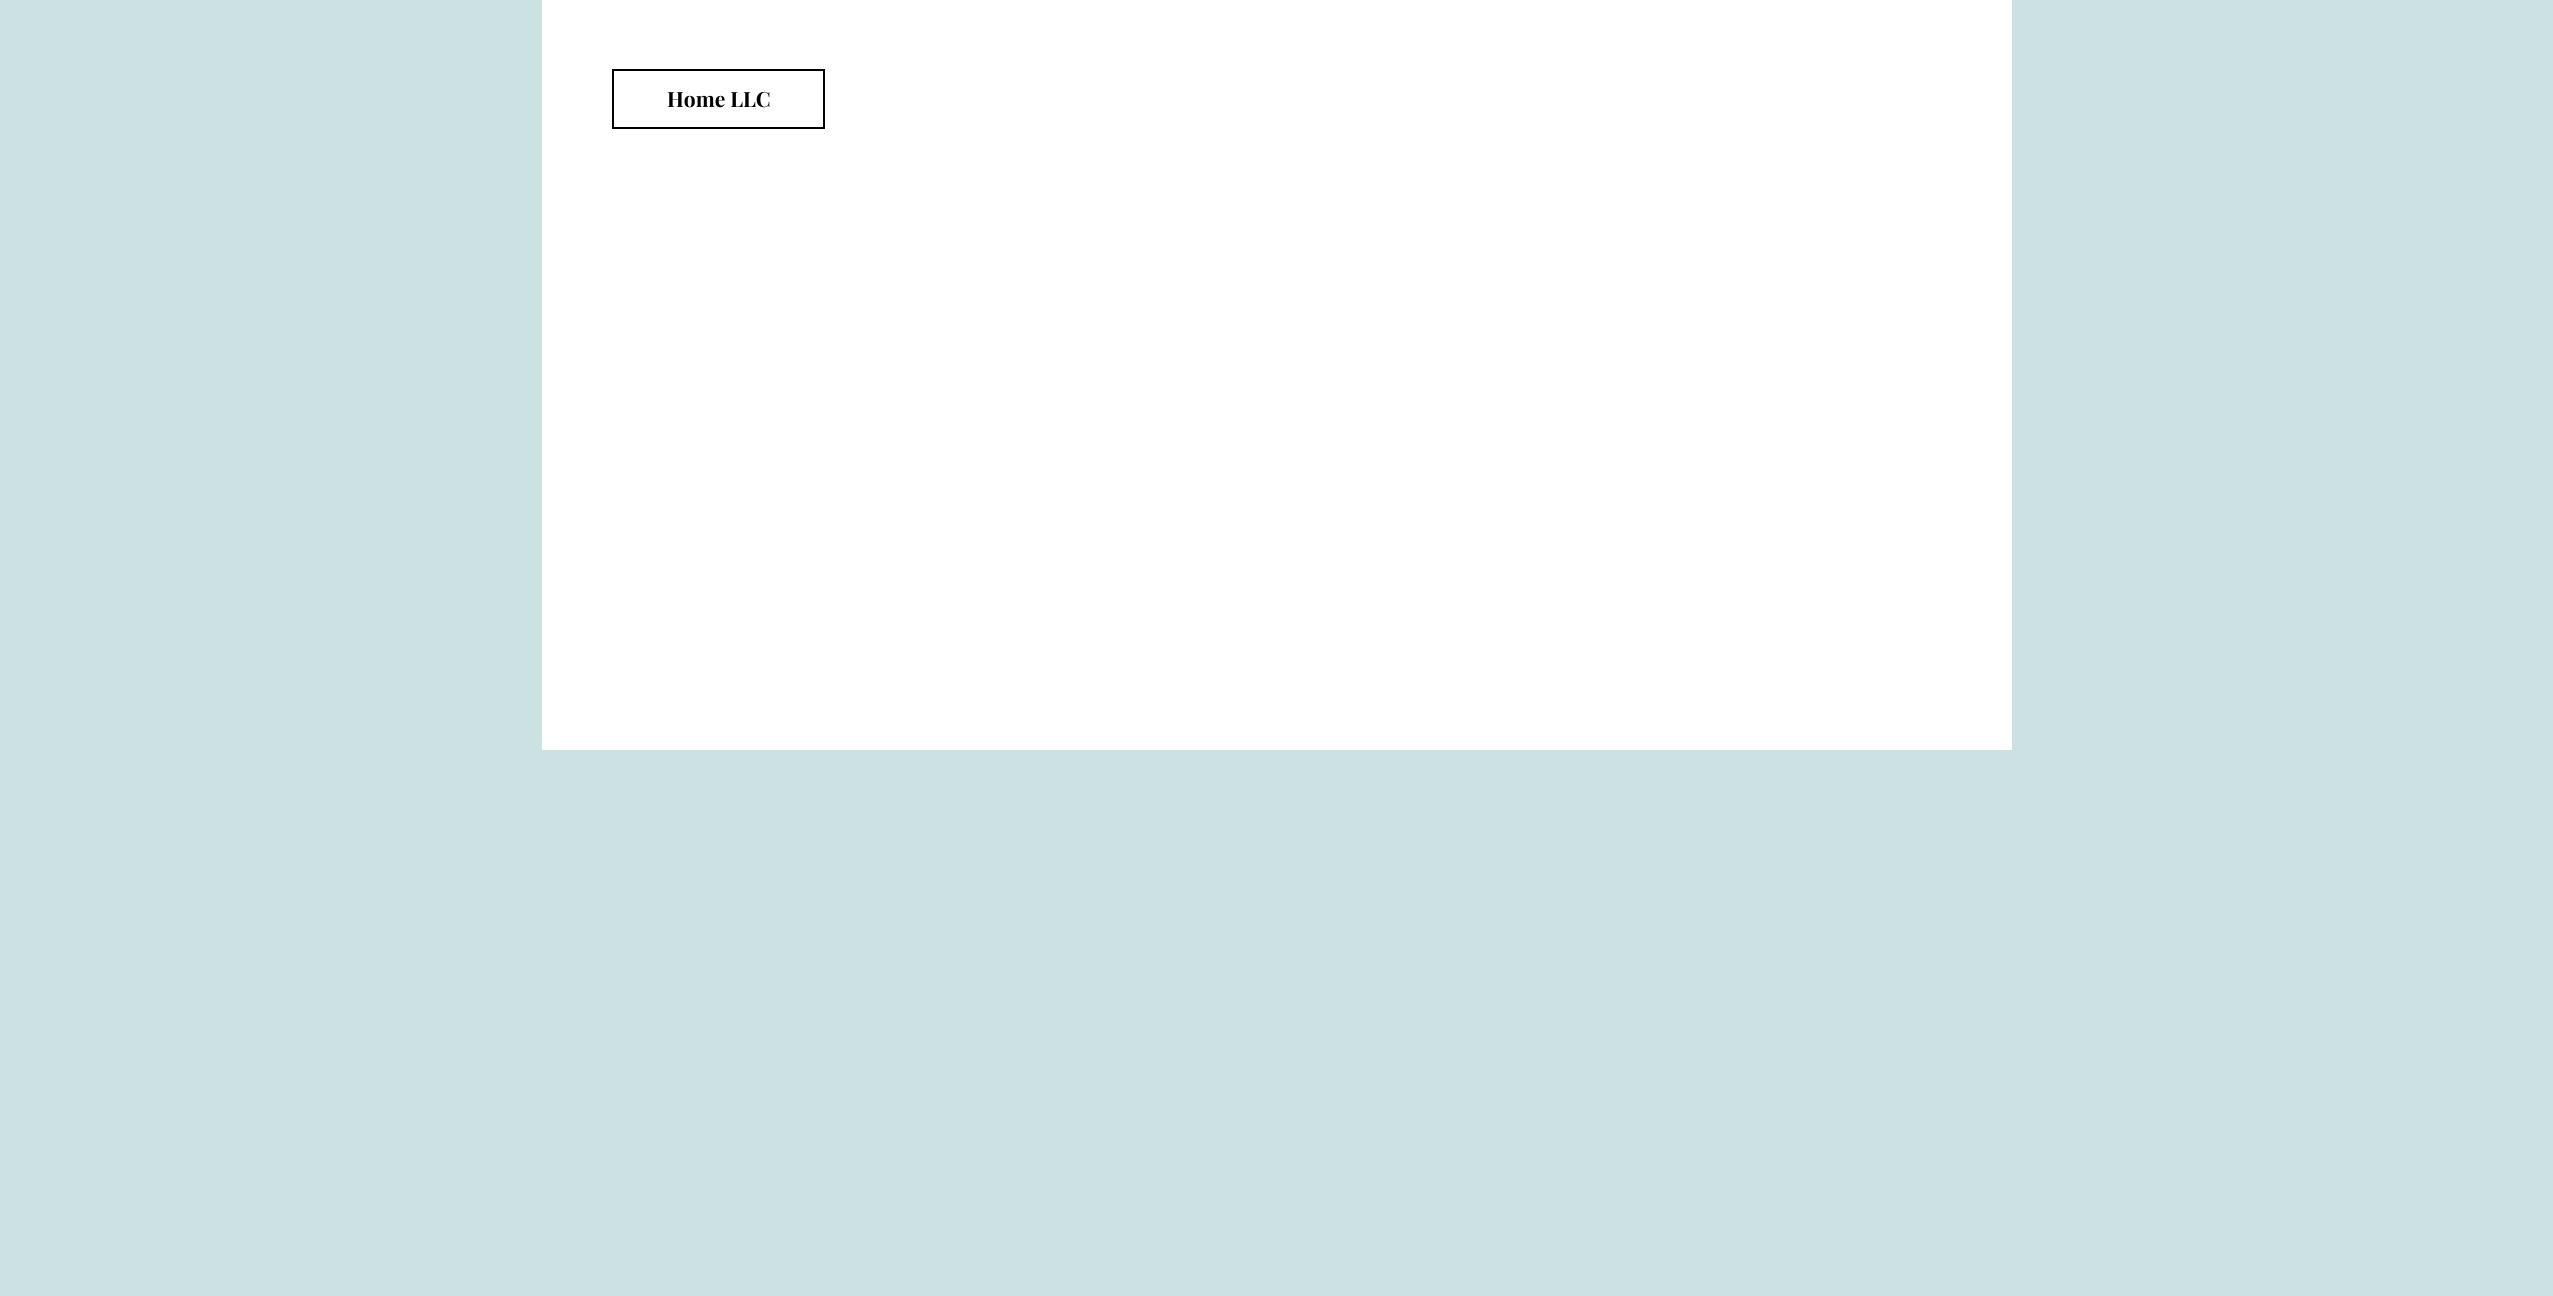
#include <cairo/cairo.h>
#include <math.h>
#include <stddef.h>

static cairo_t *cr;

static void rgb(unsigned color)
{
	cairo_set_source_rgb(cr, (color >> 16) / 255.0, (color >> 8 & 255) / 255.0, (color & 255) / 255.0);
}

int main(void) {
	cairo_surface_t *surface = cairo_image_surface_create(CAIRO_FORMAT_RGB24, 2553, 1296);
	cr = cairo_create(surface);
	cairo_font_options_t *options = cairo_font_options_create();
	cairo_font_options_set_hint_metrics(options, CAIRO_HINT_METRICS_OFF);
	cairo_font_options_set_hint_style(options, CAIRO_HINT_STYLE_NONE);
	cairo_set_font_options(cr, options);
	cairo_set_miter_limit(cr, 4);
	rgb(0xcce2e2);
	cairo_paint(cr);
	rgb(0xffffff);
	cairo_rectangle(cr, 542, 0, 1470, 750);
	cairo_fill(cr);
	cairo_rectangle(cr, 613, 70, 211, 58);
	rgb(0x000000);
	cairo_stroke(cr);
	cairo_select_font_face(cr, "Playfair Display", CAIRO_FONT_SLANT_NORMAL, CAIRO_FONT_WEIGHT_BOLD);
	cairo_set_font_size(cr, 21);
	cairo_move_to(cr, 667, 107);
	cairo_show_text(cr, "Home LLC");
	cairo_surface_write_to_png(surface, "page.png");
	cairo_font_options_destroy(options);
	cairo_destroy(cr);
	cairo_surface_destroy(surface);
	return 0;
}
